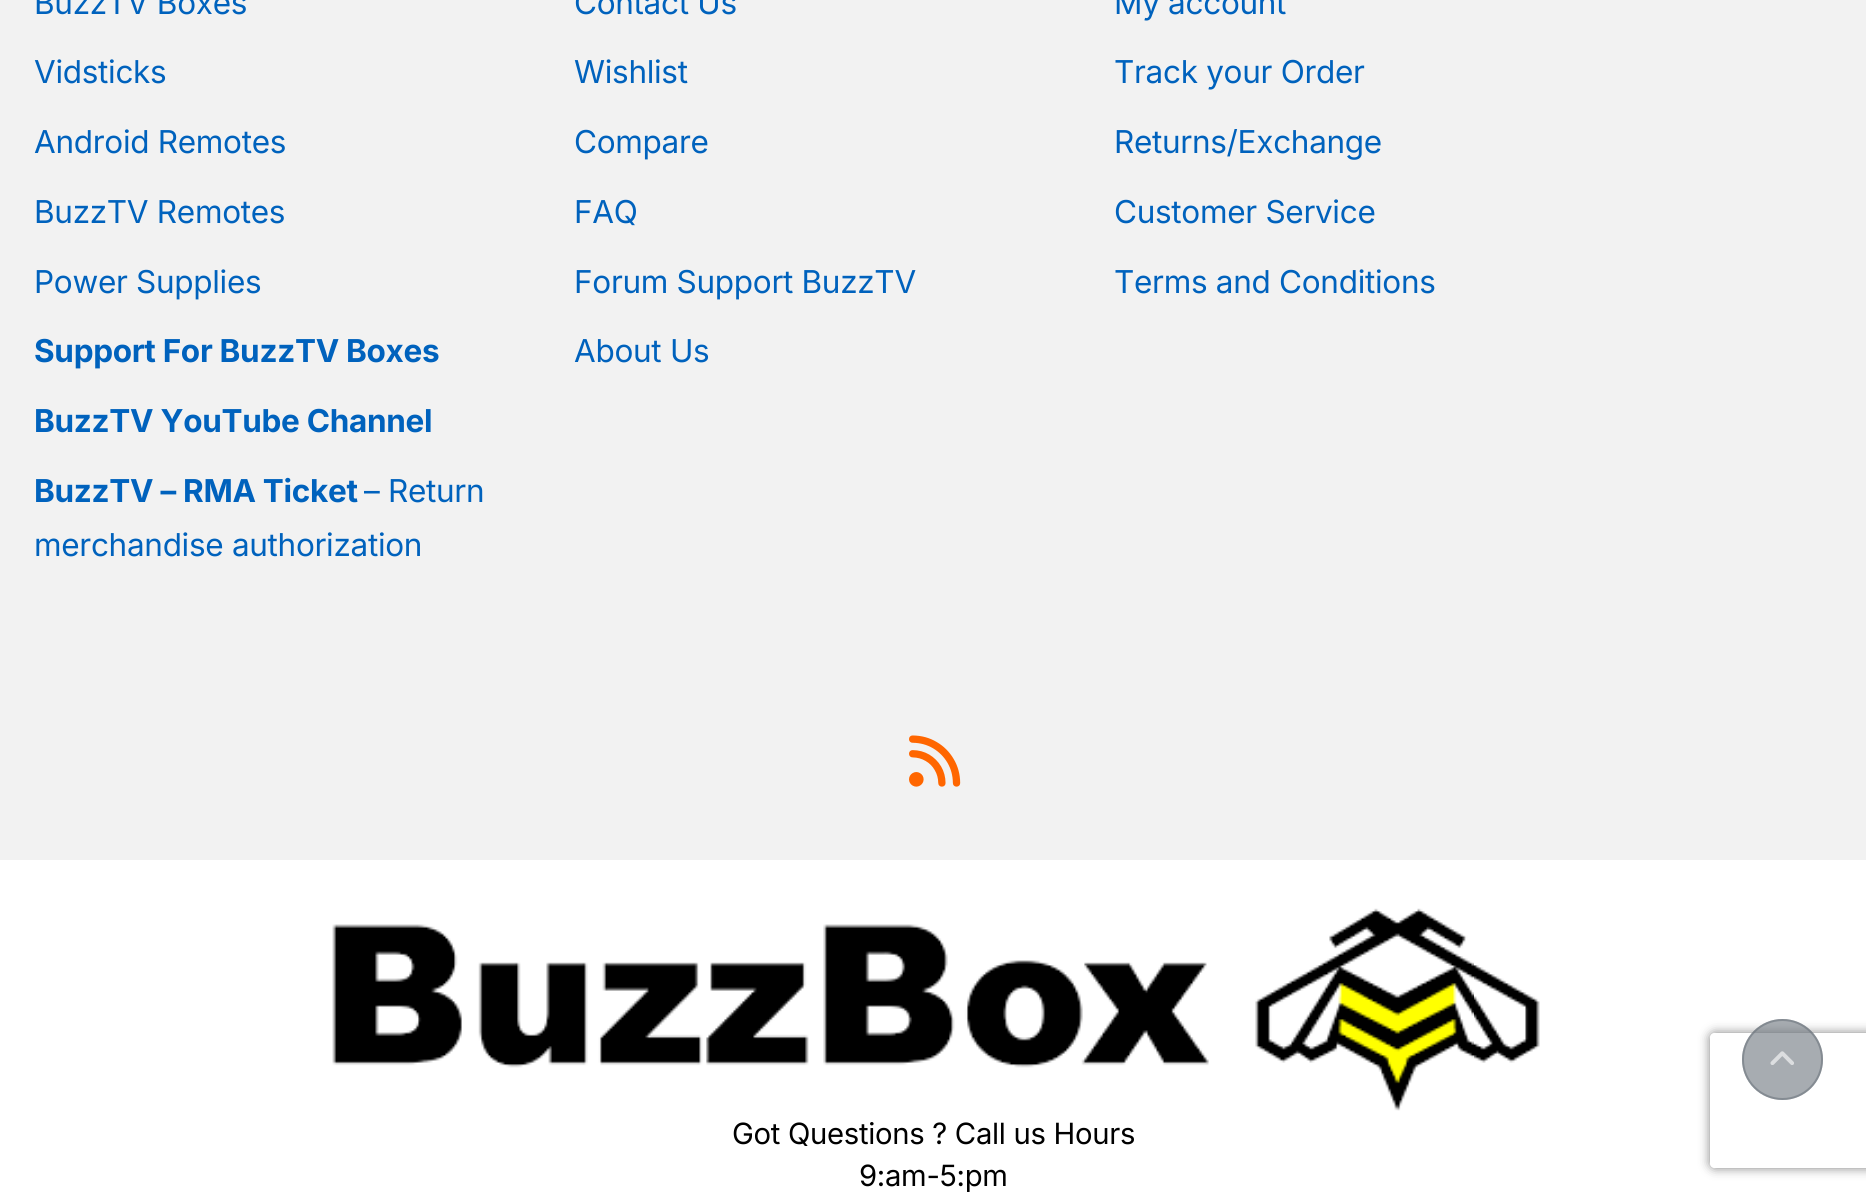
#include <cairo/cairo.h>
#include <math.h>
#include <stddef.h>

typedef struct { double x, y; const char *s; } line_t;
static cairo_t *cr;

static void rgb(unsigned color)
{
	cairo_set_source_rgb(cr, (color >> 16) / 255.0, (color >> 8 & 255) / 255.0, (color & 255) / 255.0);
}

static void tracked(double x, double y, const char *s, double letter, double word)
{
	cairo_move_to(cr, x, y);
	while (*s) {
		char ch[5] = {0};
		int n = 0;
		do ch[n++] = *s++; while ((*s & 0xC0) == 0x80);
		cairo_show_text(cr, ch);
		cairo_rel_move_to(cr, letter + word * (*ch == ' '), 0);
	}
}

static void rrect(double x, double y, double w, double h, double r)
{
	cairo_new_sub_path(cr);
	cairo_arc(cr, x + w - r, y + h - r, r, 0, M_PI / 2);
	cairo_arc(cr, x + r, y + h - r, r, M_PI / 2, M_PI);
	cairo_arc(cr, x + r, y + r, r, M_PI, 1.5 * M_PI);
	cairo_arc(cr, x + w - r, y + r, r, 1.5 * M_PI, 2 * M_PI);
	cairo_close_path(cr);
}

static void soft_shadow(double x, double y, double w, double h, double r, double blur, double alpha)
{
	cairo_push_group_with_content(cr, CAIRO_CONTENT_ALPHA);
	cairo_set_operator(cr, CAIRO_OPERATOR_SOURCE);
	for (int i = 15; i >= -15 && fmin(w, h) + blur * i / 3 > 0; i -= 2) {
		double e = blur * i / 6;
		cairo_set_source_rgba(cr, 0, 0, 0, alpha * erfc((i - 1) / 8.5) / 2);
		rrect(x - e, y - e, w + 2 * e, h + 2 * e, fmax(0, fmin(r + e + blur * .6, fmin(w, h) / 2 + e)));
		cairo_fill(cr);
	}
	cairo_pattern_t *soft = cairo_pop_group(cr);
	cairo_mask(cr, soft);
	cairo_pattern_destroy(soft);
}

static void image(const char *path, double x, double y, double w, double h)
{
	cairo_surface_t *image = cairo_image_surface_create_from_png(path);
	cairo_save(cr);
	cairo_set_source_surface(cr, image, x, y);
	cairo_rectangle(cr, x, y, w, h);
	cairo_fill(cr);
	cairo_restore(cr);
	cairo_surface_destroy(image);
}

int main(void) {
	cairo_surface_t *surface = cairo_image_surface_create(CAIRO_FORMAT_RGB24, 1866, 1199);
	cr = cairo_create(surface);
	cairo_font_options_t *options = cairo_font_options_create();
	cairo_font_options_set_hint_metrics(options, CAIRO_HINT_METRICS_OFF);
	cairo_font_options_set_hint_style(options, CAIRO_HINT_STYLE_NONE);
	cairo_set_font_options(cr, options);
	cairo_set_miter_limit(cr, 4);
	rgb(0xf2f2f2);
	cairo_paint(cr);
	image("img/1.png", 909, 735, 52, 52);
	rgb(0xffffff);
	cairo_rectangle(cr, 0, 860, 1866, 339);
	cairo_fill(cr);
	image("img/2.png", 332, 908, 1208, 203);
	cairo_save(cr);
	cairo_set_fill_rule(cr, CAIRO_FILL_RULE_EVEN_ODD);
	cairo_new_path(cr);
	cairo_move_to(cr, 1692, 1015);
	cairo_line_to(cr, 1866, 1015);
	cairo_line_to(cr, 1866, 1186);
	cairo_line_to(cr, 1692, 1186);
	cairo_close_path(cr);
	cairo_move_to(cr, 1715, 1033);
	cairo_line_to(cr, 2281, 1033);
	cairo_curve_to(cr, 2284, 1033, 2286, 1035, 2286, 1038);
	cairo_line_to(cr, 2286, 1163);
	cairo_curve_to(cr, 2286, 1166, 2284, 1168, 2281, 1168);
	cairo_line_to(cr, 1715, 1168);
	cairo_curve_to(cr, 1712, 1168, 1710, 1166, 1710, 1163);
	cairo_line_to(cr, 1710, 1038);
	cairo_curve_to(cr, 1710, 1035, 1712, 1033, 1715, 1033);
	cairo_close_path(cr);
	cairo_clip(cr);
	rgb(0x808080);
	soft_shadow(1710, 1033, 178, 135, 5, 5.5, 1);
	cairo_restore(cr);
	cairo_set_source_rgba(cr, 0.424, 0.459, 0.49, 0.6);
	cairo_arc(cr, 1782.5, 1059.5, 40.5, 0, 2 * M_PI);
	cairo_fill(cr);
	cairo_arc(cr, 1782.5, 1059.5, 39.5, 0, 2 * M_PI);
	cairo_stroke(cr);
	image("img/3.png", 1770, 1051, 24, 14);
	cairo_select_font_face(cr, "Inter", CAIRO_FONT_SLANT_NORMAL, CAIRO_FONT_WEIGHT_NORMAL);
	cairo_set_font_size(cr, 31.5);
	rgb(0x0062bd);
	{
		static const line_t items[] = {
			{34, 14, "BuzzTV Boxes"},
			{34, 83, "Vidsticks"},
			{34, 153, "Android Remotes"},
			{34, 223, "BuzzTV Remotes"},
			{34, 293, "Power Supplies"},
		};
		for (size_t i = 0; i < sizeof items / sizeof *items; i++) {
			tracked(items[i].x, items[i].y, items[i].s, -0.3, 0);
		}
	}
	cairo_select_font_face(cr, "Inter", CAIRO_FONT_SLANT_NORMAL, CAIRO_FONT_WEIGHT_BOLD);
	{
		static const line_t items[] = {
			{34, 362, "Support For BuzzTV Boxes"},
			{34, 432, "BuzzTV YouTube Channel"},
			{34, 502, "BuzzTV – RMA Ticket"},
		};
		for (size_t i = 0; i < sizeof items / sizeof *items; i++) {
			tracked(items[i].x, items[i].y, items[i].s, -0.3, 0);
		}
	}
	cairo_select_font_face(cr, "Inter", CAIRO_FONT_SLANT_NORMAL, CAIRO_FONT_WEIGHT_NORMAL);
	{
		static const line_t items[] = {
			{364, 502, "– Return"},
			{34, 556, "merchandise authorization"},
			{574, 14, "Contact Us"},
			{574, 83, "Wishlist"},
			{574, 153, "Compare"},
			{574, 223, "FAQ"},
			{574, 293, "Forum Support BuzzTV"},
			{574, 362, "About Us"},
			{1114, 14, "My account"},
			{1114, 83, "Track your Order"},
			{1114, 153, "Returns/Exchange"},
			{1114, 223, "Customer Service"},
			{1114, 293, "Terms and Conditions"},
		};
		for (size_t i = 0; i < sizeof items / sizeof *items; i++) {
			tracked(items[i].x, items[i].y, items[i].s, -0.3, 0);
		}
	}
	cairo_set_font_size(cr, 29.25);
	rgb(0x000000);
	tracked(732, 1144, "Got Questions ? Call us Hours", -0.3, 0);
	tracked(859, 1186, "9:am-5:pm", -0.3, 0);
	cairo_surface_write_to_png(surface, "page.png");
	cairo_font_options_destroy(options);
	cairo_destroy(cr);
	cairo_surface_destroy(surface);
	return 0;
}
